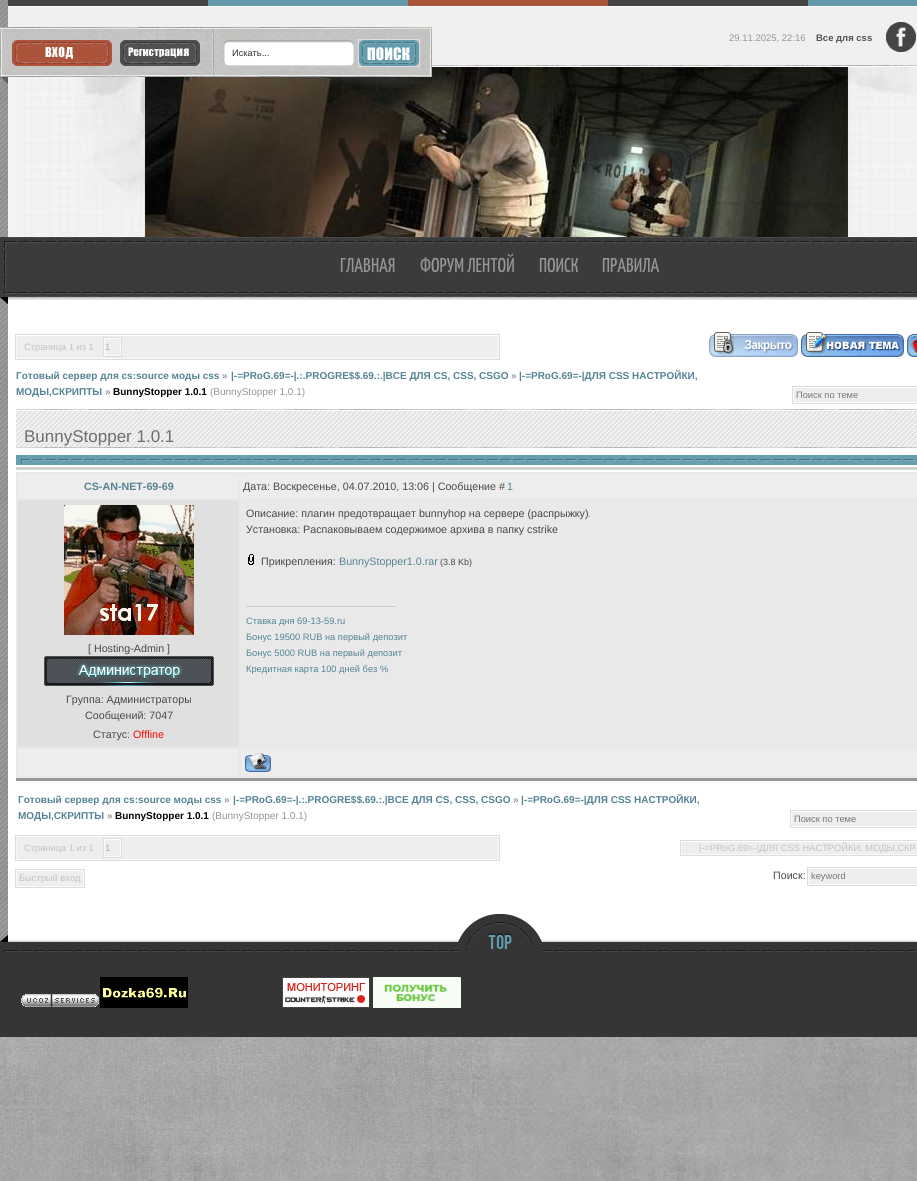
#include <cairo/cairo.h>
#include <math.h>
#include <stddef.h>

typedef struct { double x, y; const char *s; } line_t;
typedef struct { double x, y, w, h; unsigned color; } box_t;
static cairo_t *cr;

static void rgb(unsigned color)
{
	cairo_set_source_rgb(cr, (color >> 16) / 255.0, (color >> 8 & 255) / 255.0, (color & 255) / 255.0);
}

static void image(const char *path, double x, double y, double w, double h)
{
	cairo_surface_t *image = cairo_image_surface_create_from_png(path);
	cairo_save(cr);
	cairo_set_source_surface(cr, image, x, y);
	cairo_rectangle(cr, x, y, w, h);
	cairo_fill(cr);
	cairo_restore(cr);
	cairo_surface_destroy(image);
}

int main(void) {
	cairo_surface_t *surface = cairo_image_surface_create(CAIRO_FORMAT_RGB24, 917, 1181);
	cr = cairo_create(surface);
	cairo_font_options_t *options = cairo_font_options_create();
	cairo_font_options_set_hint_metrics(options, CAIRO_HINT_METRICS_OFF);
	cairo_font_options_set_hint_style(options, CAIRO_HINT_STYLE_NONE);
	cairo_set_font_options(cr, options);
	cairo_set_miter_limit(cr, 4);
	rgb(0xffffff);
	cairo_paint(cr);
	image("img/1.png", 0, 1037, 917, 144);
	image("img/2.png", 0, 0, 8, 942);
	image("img/3.png", 8, 0, 909, 6);
	rgb(0xf1f0ee);
	cairo_rectangle(cr, 8, 7, 909, 58);
	cairo_fill(cr);
	image("img/4.png", 432, 65, 485, 2);
	rgb(0xf3f3f3);
	cairo_rectangle(cr, 8, 77, 15, 160);
	cairo_fill(cr);
	image("img/12.png", 23, 67, 894, 170);
	image("img/5.png", 0, 27, 212, 57);
	image("img/6.png", 12, 40, 100, 26);
	image("img/7.png", 120, 40, 80, 26);
	image("img/8.png", 886, 22, 30, 30);
	image("img/9.png", 212, 27, 220, 61);
	image("img/10.png", 224, 40, 130, 26);
	image("img/11.png", 359, 40, 60, 26);
	cairo_rectangle(cr, 358.5, 39.5, 61, 27);
	rgb(0xdddddd);
	cairo_set_line_width(cr, 1);
	cairo_stroke(cr);
	image("img/13.png", 8, 237, 909, 63);
	image("img/14.png", 0, 237, 8, 67);
	{
		static const box_t items[] = {
			{17, 336, 481, 22, 0xeeeeee},
			{498, 335, 1, 24, 0xf9f9f9},
			{16, 358, 483, 1, 0xf9f9f9},
			{16, 335, 1, 24, 0xf9f9f9},
			{104, 338, 17, 1, 0xffffff},
			{120, 338, 1, 18, 0xf9f9f9},
			{104, 355, 17, 1, 0xf9f9f9},
			{104, 338, 1, 18, 0xf9f9f9},
		};
		for (size_t i = 0; i < sizeof items / sizeof *items; i++) {
			rgb(items[i].color);
			cairo_rectangle(cr, items[i].x, items[i].y, items[i].w, items[i].h);
			cairo_fill(cr);
		}
	}
	cairo_rectangle(cr, 103.5, 337.5, 18, 19);
	rgb(0xdddddd);
	cairo_stroke(cr);
	cairo_rectangle(cr, 15.5, 334.5, 484, 25);
	cairo_stroke(cr);
	image("img/15.png", 709, 332, 89, 25);
	image("img/16.png", 801, 332, 103, 25);
	image("img/17.png", 907, 334, 10, 23);
	{
		static const box_t items[] = {
			{794, 388, 123, 14, 0xeeeeee},
			{793, 402, 124, 1, 0xf9f9f9},
			{793, 387, 1, 16, 0xf9f9f9},
		};
		for (size_t i = 0; i < sizeof items / sizeof *items; i++) {
			rgb(items[i].color);
			cairo_rectangle(cr, items[i].x, items[i].y, items[i].w, items[i].h);
			cairo_fill(cr);
		}
	}
	cairo_rectangle(cr, 792.5, 386.5, 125, 17);
	rgb(0xdddddd);
	cairo_stroke(cr);
	image("img/18.png", 16, 409, 901, 56);
	{
		static const box_t items[] = {
			{16, 467, 901, 3, 0xd1d1d1},
			{16, 778, 901, 3, 0x989898},
			{16, 472, 901, 306, 0xe9e9e9},
			{18, 474, 221, 24, 0xededed},
			{241, 474, 676, 24, 0xededed},
		};
		for (size_t i = 0; i < sizeof items / sizeof *items; i++) {
			rgb(items[i].color);
			cairo_rectangle(cr, items[i].x, items[i].y, items[i].w, items[i].h);
			cairo_fill(cr);
		}
	}
	image("img/19.png", 248, 554, 6, 11);
	rgb(0xcccccc);
	cairo_rectangle(cr, 246, 606, 150, 1);
	cairo_fill(cr);
	rgb(0xe0e0e0);
	cairo_rectangle(cr, 18, 500, 221, 247);
	cairo_fill(cr);
	image("img/20.png", 64, 505, 130, 130);
	image("img/21.png", 44, 656, 170, 30);
	rgb(0xededed);
	cairo_rectangle(cr, 18, 749, 221, 27);
	cairo_fill(cr);
	cairo_rectangle(cr, 241, 749, 676, 27);
	cairo_fill(cr);
	image("img/22.png", 245, 753, 26, 19);
	{
		static const box_t items[] = {
			{792, 812, 125, 14, 0xeeeeee},
			{791, 826, 126, 1, 0xf9f9f9},
			{791, 811, 1, 16, 0xf9f9f9},
		};
		for (size_t i = 0; i < sizeof items / sizeof *items; i++) {
			rgb(items[i].color);
			cairo_rectangle(cr, items[i].x, items[i].y, items[i].w, items[i].h);
			cairo_fill(cr);
		}
	}
	cairo_rectangle(cr, 790.5, 810.5, 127, 17);
	rgb(0xdddddd);
	cairo_stroke(cr);
	{
		static const box_t items[] = {
			{17, 837, 481, 22, 0xeeeeee},
			{498, 836, 1, 24, 0xf9f9f9},
			{16, 859, 483, 1, 0xf9f9f9},
			{16, 836, 1, 24, 0xf9f9f9},
			{104, 839, 17, 1, 0xffffff},
			{120, 839, 1, 18, 0xf9f9f9},
			{104, 856, 17, 1, 0xf9f9f9},
			{104, 839, 1, 18, 0xf9f9f9},
		};
		for (size_t i = 0; i < sizeof items / sizeof *items; i++) {
			rgb(items[i].color);
			cairo_rectangle(cr, items[i].x, items[i].y, items[i].w, items[i].h);
			cairo_fill(cr);
		}
	}
	cairo_rectangle(cr, 103.5, 838.5, 18, 19);
	rgb(0xdddddd);
	cairo_stroke(cr);
	cairo_rectangle(cr, 15.5, 835.5, 484, 25);
	cairo_stroke(cr);
	{
		static const box_t items[] = {
			{682, 842, 235, 12, 0xeeeeee},
			{681, 854, 236, 1, 0xf9f9f9},
			{681, 841, 1, 14, 0xf9f9f9},
		};
		for (size_t i = 0; i < sizeof items / sizeof *items; i++) {
			rgb(items[i].color);
			cairo_rectangle(cr, items[i].x, items[i].y, items[i].w, items[i].h);
			cairo_fill(cr);
		}
	}
	cairo_rectangle(cr, 680.5, 840.5, 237, 15);
	rgb(0xdddddd);
	cairo_stroke(cr);
	{
		static const box_t items[] = {
			{17, 871, 66, 15, 0xeeeeee},
			{83, 870, 1, 17, 0xf9f9f9},
			{16, 886, 68, 1, 0xf9f9f9},
			{16, 870, 1, 17, 0xf9f9f9},
		};
		for (size_t i = 0; i < sizeof items / sizeof *items; i++) {
			rgb(items[i].color);
			cairo_rectangle(cr, items[i].x, items[i].y, items[i].w, items[i].h);
			cairo_fill(cr);
		}
	}
	cairo_rectangle(cr, 15.5, 869.5, 69, 18);
	rgb(0xdddddd);
	cairo_stroke(cr);
	{
		static const box_t items[] = {
			{809, 869, 108, 15, 0xeeeeee},
			{808, 884, 109, 1, 0xf9f9f9},
			{808, 868, 1, 17, 0xf9f9f9},
		};
		for (size_t i = 0; i < sizeof items / sizeof *items; i++) {
			rgb(items[i].color);
			cairo_rectangle(cr, items[i].x, items[i].y, items[i].w, items[i].h);
			cairo_fill(cr);
		}
	}
	cairo_rectangle(cr, 807.5, 867.5, 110, 18);
	rgb(0xdddddd);
	cairo_stroke(cr);
	image("img/23.png", 8, 940, 909, 12);
	image("img/24.png", 0, 935, 8, 17);
	image("img/25.png", 458, 914, 84, 38);
	rgb(0x353535);
	cairo_rectangle(cr, 0, 952, 917, 85);
	cairo_fill(cr);
	image("img/26.png", 21, 994, 78, 13);
	image("img/27.png", 100, 977, 88, 31);
	image("img/28.png", 282, 977, 88, 31);
	image("img/29.png", 373, 977, 88, 31);
	cairo_select_font_face(cr, "Liberation Sans", CAIRO_FONT_SLANT_NORMAL, CAIRO_FONT_WEIGHT_NORMAL);
	cairo_set_font_size(cr, 9.5);
	rgb(0x959595);
	cairo_move_to(cr, 729, 41);
	cairo_show_text(cr, "29.11.2025, 22:16");
	cairo_select_font_face(cr, "Liberation Sans", CAIRO_FONT_SLANT_NORMAL, CAIRO_FONT_WEIGHT_BOLD);
	rgb(0x525252);
	cairo_move_to(cr, 816, 41);
	cairo_show_text(cr, "Все для css");
	cairo_select_font_face(cr, "Liberation Sans", CAIRO_FONT_SLANT_NORMAL, CAIRO_FONT_WEIGHT_NORMAL);
	cairo_set_font_size(cr, 9.3);
	rgb(0x333333);
	cairo_move_to(cr, 232, 56);
	cairo_show_text(cr, "Искать...");
	cairo_select_font_face(cr, "Yanone Kaffeesatz ExtraLight", CAIRO_FONT_SLANT_NORMAL, CAIRO_FONT_WEIGHT_NORMAL);
	cairo_set_font_size(cr, 20);
	rgb(0x959595);
	{
		static const line_t items[] = {
			{340, 272, "ГЛАВНАЯ"},
			{420, 272, "ФОРУМ ЛЕНТОЙ"},
			{539, 272, "ПОИСК"},
			{602, 272, "ПРАВИЛА"},
		};
		for (size_t i = 0; i < sizeof items / sizeof *items; i++) {
			cairo_move_to(cr, items[i].x, items[i].y);
			cairo_show_text(cr, items[i].s);
		}
	}
	cairo_select_font_face(cr, "Liberation Sans", CAIRO_FONT_SLANT_NORMAL, CAIRO_FONT_WEIGHT_NORMAL);
	cairo_set_font_size(cr, 9.3);
	rgb(0xc2c2c2);
	cairo_move_to(cr, 24, 350);
	cairo_show_text(cr, "Страница 1 из 1");
	cairo_select_font_face(cr, "Liberation Sans", CAIRO_FONT_SLANT_NORMAL, CAIRO_FONT_WEIGHT_BOLD);
	cairo_move_to(cr, 105, 350);
	cairo_show_text(cr, "1");
	cairo_set_font_size(cr, 10);
	rgb(0x538394);
	cairo_move_to(cr, 16, 379);
	cairo_show_text(cr, "Готовый сервер для cs:source моды css");
	rgb(0x959595);
	cairo_move_to(cr, 222, 379);
	cairo_show_text(cr, "»");
	rgb(0x538394);
	cairo_move_to(cr, 231, 379);
	cairo_show_text(cr, "|-=PRoG.69=-|.:.PROGRE$$.69.:.|ВСЕ ДЛЯ CS, CSS, CSGO");
	rgb(0x959595);
	cairo_move_to(cr, 511, 379);
	cairo_show_text(cr, "»");
	rgb(0x538394);
	cairo_move_to(cr, 519, 379);
	cairo_show_text(cr, "|-=PRoG.69=-|ДЛЯ CSS НАСТРОЙКИ,");
	cairo_move_to(cr, 16, 395);
	cairo_show_text(cr, "МОДЫ,СКРИПТЫ");
	rgb(0x959595);
	cairo_move_to(cr, 105, 395);
	cairo_show_text(cr, "»");
	rgb(0x000000);
	cairo_move_to(cr, 113, 395);
	cairo_show_text(cr, "BunnyStopper 1.0.1");
	cairo_select_font_face(cr, "Liberation Sans", CAIRO_FONT_SLANT_NORMAL, CAIRO_FONT_WEIGHT_NORMAL);
	rgb(0x959595);
	cairo_move_to(cr, 210, 395);
	cairo_show_text(cr, "(BunnyStopper 1.0.1)");
	cairo_set_font_size(cr, 9.3);
	rgb(0x757575);
	cairo_move_to(cr, 796, 398);
	cairo_show_text(cr, "Поиск по теме");
	cairo_set_font_size(cr, 17);
	rgb(0x6e6e6e);
	cairo_move_to(cr, 24, 442);
	cairo_show_text(cr, "BunnyStopper 1.0.1");
	cairo_select_font_face(cr, "Liberation Sans", CAIRO_FONT_SLANT_NORMAL, CAIRO_FONT_WEIGHT_BOLD);
	cairo_set_font_size(cr, 10.7);
	rgb(0x538394);
	cairo_move_to(cr, 84, 490);
	cairo_show_text(cr, "CS-AN-NET-69-69");
	cairo_select_font_face(cr, "Liberation Sans", CAIRO_FONT_SLANT_NORMAL, CAIRO_FONT_WEIGHT_NORMAL);
	rgb(0x484848);
	cairo_move_to(cr, 243, 490);
	cairo_show_text(cr, "Дата: Воскресенье, 04.07.2010, 13:06 | Сообщение #");
	rgb(0x538394);
	cairo_move_to(cr, 507, 490);
	cairo_show_text(cr, "1");
	rgb(0x484848);
	{
		static const line_t items[] = {
			{246, 517, "Описание: плагин предотвращает bunnyhop на сервере (распрыжку)."},
			{246, 533, "Установка: Распаковываем содержимое архива в папку cstrike"},
			{261, 565, "Прикрепления:"},
		};
		for (size_t i = 0; i < sizeof items / sizeof *items; i++) {
			cairo_move_to(cr, items[i].x, items[i].y);
			cairo_show_text(cr, items[i].s);
		}
	}
	rgb(0x538394);
	cairo_move_to(cr, 339, 565);
	cairo_show_text(cr, "BunnyStopper1.0.rar");
	cairo_set_font_size(cr, 9);
	rgb(0x484848);
	cairo_move_to(cr, 440, 565);
	cairo_show_text(cr, "(3.8 Kb)");
	cairo_set_font_size(cr, 9.3);
	rgb(0x538394);
	{
		static const line_t items[] = {
			{246, 624, "Ставка дня 69-13-59.ru"},
			{246, 640, "Бонус 19500 RUB на первый депозит"},
			{246, 656, "Бонус 5000 RUB на первый депозит"},
			{246, 672, "Кредитная карта 100 дней без %"},
		};
		for (size_t i = 0; i < sizeof items / sizeof *items; i++) {
			cairo_move_to(cr, items[i].x, items[i].y);
			cairo_show_text(cr, items[i].s);
		}
	}
	cairo_set_font_size(cr, 10.7);
	rgb(0x484848);
	{
		static const line_t items[] = {
			{88, 652, "[ Hosting-Admin ]"},
			{66, 703, "Группа: Администраторы"},
			{85, 719, "Сообщений: 7047"},
			{93, 738, "Статус:"},
		};
		for (size_t i = 0; i < sizeof items / sizeof *items; i++) {
			cairo_move_to(cr, items[i].x, items[i].y);
			cairo_show_text(cr, items[i].s);
		}
	}
	rgb(0xff0000);
	cairo_move_to(cr, 133, 738);
	cairo_show_text(cr, "Offline");
	cairo_select_font_face(cr, "Liberation Sans", CAIRO_FONT_SLANT_NORMAL, CAIRO_FONT_WEIGHT_BOLD);
	cairo_set_font_size(cr, 10);
	rgb(0x538394);
	cairo_move_to(cr, 18, 803);
	cairo_show_text(cr, "Готовый сервер для cs:source моды css");
	rgb(0x959595);
	cairo_move_to(cr, 224, 803);
	cairo_show_text(cr, "»");
	rgb(0x538394);
	cairo_move_to(cr, 233, 803);
	cairo_show_text(cr, "|-=PRoG.69=-|.:.PROGRE$$.69.:.|ВСЕ ДЛЯ CS, CSS, CSGO");
	rgb(0x959595);
	cairo_move_to(cr, 513, 803);
	cairo_show_text(cr, "»");
	rgb(0x538394);
	cairo_move_to(cr, 521, 803);
	cairo_show_text(cr, "|-=PRoG.69=-|ДЛЯ CSS НАСТРОЙКИ,");
	cairo_move_to(cr, 18, 819);
	cairo_show_text(cr, "МОДЫ,СКРИПТЫ");
	rgb(0x959595);
	cairo_move_to(cr, 107, 819);
	cairo_show_text(cr, "»");
	rgb(0x000000);
	cairo_move_to(cr, 115, 819);
	cairo_show_text(cr, "BunnyStopper 1.0.1");
	cairo_select_font_face(cr, "Liberation Sans", CAIRO_FONT_SLANT_NORMAL, CAIRO_FONT_WEIGHT_NORMAL);
	rgb(0x959595);
	cairo_move_to(cr, 212, 819);
	cairo_show_text(cr, "(BunnyStopper 1.0.1)");
	cairo_set_font_size(cr, 9.3);
	rgb(0x757575);
	cairo_move_to(cr, 794, 822);
	cairo_show_text(cr, "Поиск по теме");
	rgb(0xc2c2c2);
	cairo_move_to(cr, 24, 851);
	cairo_show_text(cr, "Страница 1 из 1");
	cairo_select_font_face(cr, "Liberation Sans", CAIRO_FONT_SLANT_NORMAL, CAIRO_FONT_WEIGHT_BOLD);
	cairo_move_to(cr, 105, 851);
	cairo_show_text(cr, "1");
	cairo_select_font_face(cr, "Liberation Sans", CAIRO_FONT_SLANT_NORMAL, CAIRO_FONT_WEIGHT_NORMAL);
	cairo_move_to(cr, 699, 851);
	cairo_show_text(cr, "|-=PRoG.69=-|ДЛЯ CSS НАСТРОЙКИ, МОДЫ,СКР");
	cairo_move_to(cr, 19, 881);
	cairo_show_text(cr, "Быстрый вход");
	cairo_set_font_size(cr, 10.7);
	rgb(0x484848);
	cairo_move_to(cr, 773, 879);
	cairo_show_text(cr, "Поиск:");
	cairo_set_font_size(cr, 9.3);
	rgb(0x757575);
	cairo_move_to(cr, 811, 879);
	cairo_show_text(cr, "keyword");
	cairo_surface_write_to_png(surface, "page.png");
	cairo_font_options_destroy(options);
	cairo_destroy(cr);
	cairo_surface_destroy(surface);
	return 0;
}
